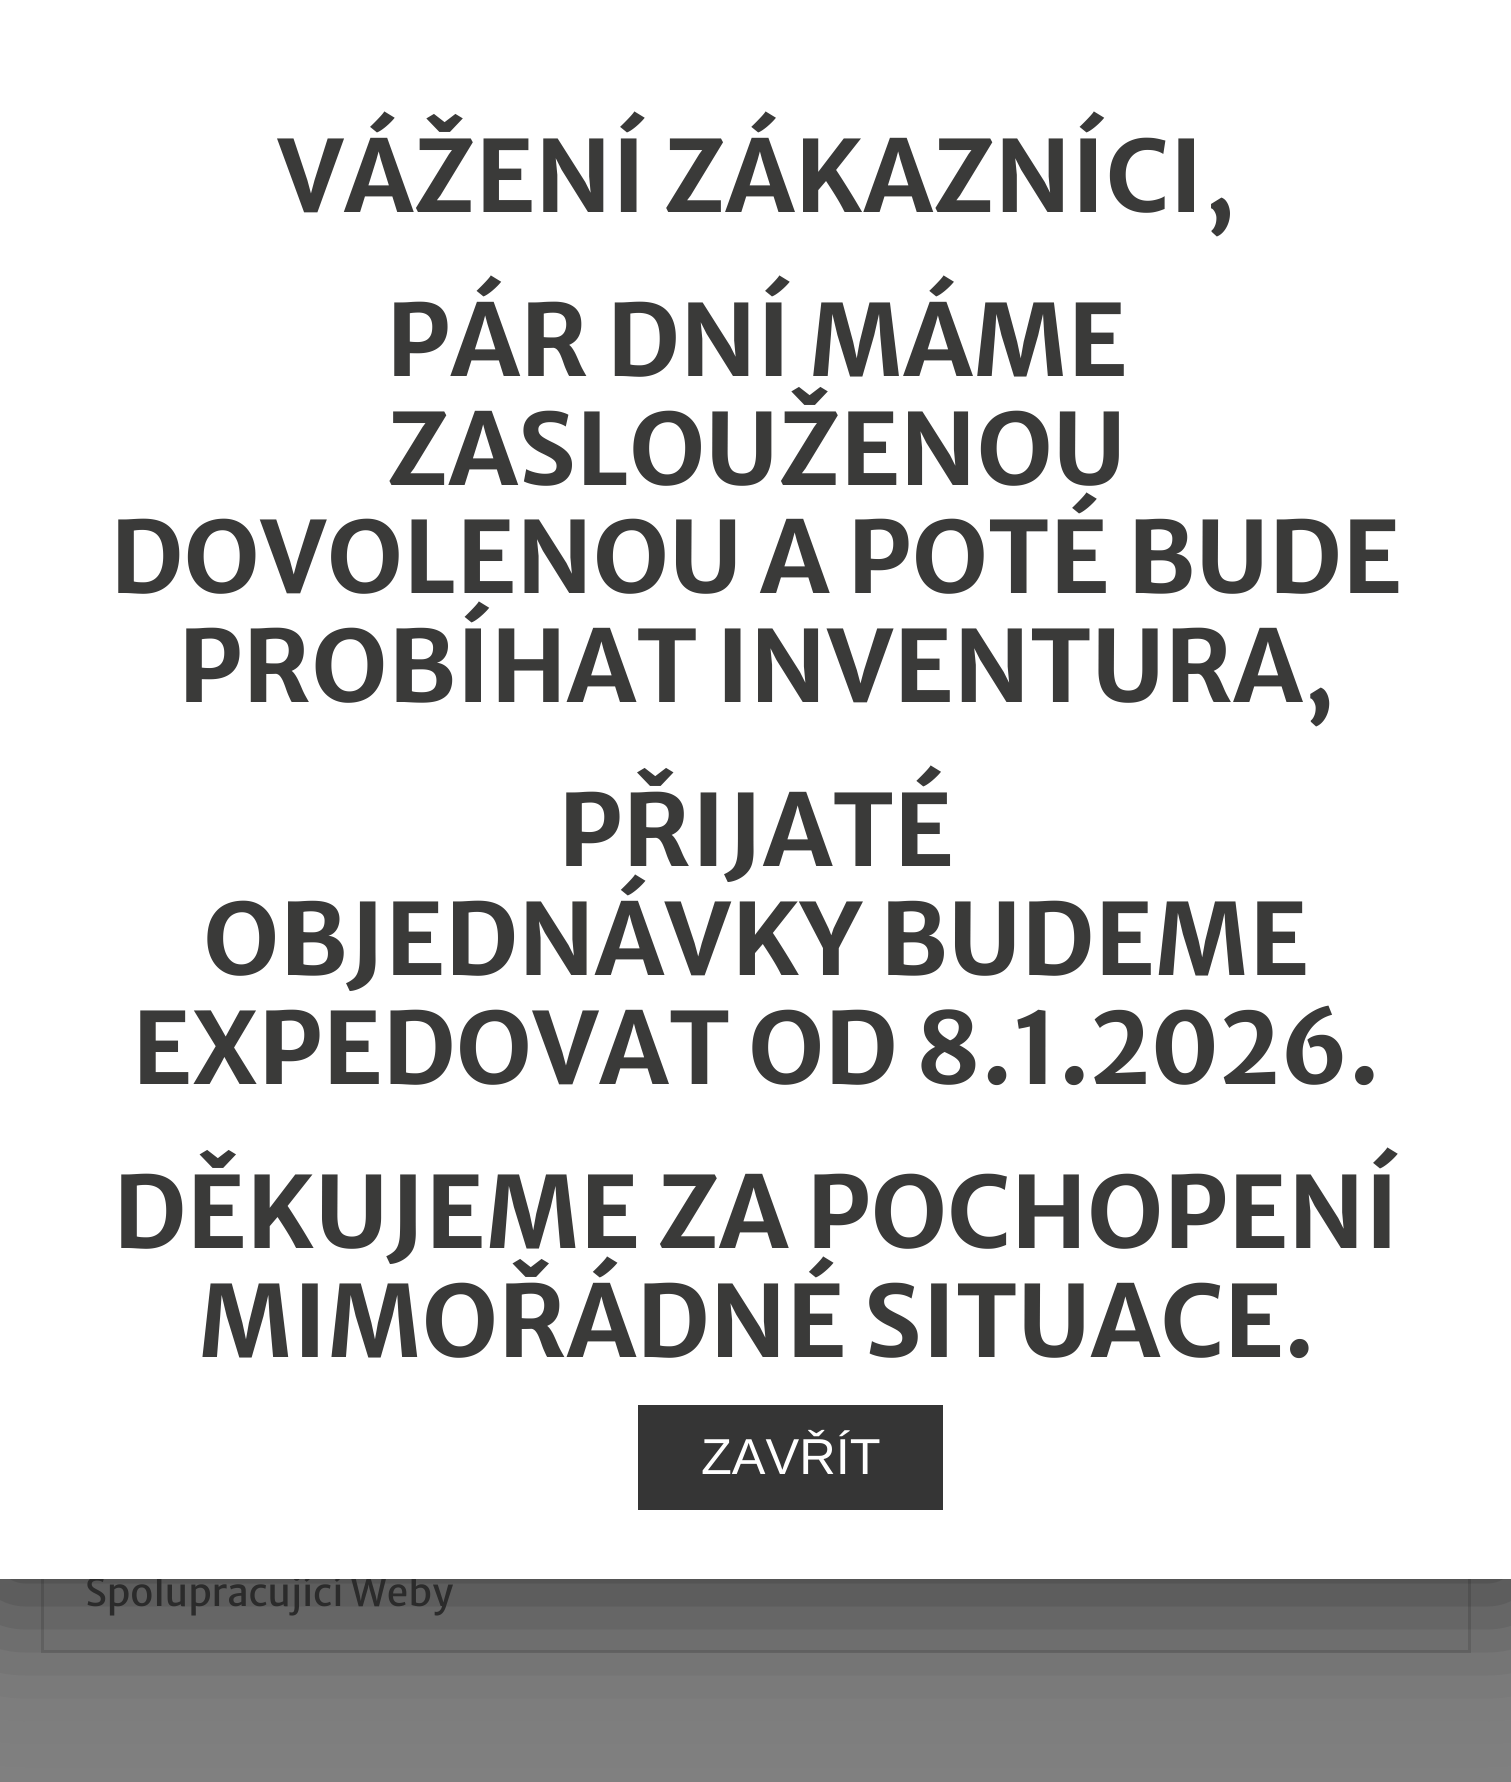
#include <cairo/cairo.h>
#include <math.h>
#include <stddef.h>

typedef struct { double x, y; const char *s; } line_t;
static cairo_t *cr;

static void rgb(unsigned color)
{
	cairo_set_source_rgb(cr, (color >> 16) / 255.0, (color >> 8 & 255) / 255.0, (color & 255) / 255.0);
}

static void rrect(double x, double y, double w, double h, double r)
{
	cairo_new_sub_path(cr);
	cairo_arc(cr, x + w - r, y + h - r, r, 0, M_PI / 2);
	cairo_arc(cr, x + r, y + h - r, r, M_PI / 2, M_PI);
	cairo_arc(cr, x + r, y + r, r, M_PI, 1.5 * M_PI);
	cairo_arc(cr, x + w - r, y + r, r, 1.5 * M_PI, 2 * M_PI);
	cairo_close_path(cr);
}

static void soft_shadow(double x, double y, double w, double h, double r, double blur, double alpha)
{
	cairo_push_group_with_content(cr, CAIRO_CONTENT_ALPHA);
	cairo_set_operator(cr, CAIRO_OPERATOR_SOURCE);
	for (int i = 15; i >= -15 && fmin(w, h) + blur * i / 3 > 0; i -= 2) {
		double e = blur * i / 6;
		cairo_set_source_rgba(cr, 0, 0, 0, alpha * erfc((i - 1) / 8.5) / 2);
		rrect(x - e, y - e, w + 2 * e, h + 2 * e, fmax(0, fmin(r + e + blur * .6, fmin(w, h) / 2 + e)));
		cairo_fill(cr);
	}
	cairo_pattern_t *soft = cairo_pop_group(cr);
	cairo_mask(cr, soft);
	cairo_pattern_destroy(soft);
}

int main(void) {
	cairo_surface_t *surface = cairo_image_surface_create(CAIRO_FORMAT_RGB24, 1511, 1782);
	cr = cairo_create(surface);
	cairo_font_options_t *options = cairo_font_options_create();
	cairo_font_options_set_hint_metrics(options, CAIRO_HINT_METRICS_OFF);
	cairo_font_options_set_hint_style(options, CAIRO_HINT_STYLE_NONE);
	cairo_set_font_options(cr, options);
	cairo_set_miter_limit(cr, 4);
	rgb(0x808080);
	cairo_paint(cr);
	cairo_rectangle(cr, 42.5, 1533.5, 1427, 118);
	rgb(0x6f6f6f);
	cairo_set_line_width(cr, 3);
	cairo_stroke(cr);
	rgb(0x000000);
	soft_shadow(-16, -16, 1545, 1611, 0, 69, 0.55);
	cairo_select_font_face(cr, "Merriweather Sans", CAIRO_FONT_SLANT_NORMAL, CAIRO_FONT_WEIGHT_NORMAL);
	cairo_set_font_size(cr, 38.5);
	rgb(0x2b2b2b);
	cairo_move_to(cr, 85, 1606);
	cairo_show_text(cr, "Spolupracující Weby");
	rgb(0xffffff);
	cairo_rectangle(cr, 0, 0, 1511, 1579);
	cairo_fill(cr);
	rgb(0x353535);
	cairo_rectangle(cr, 638, 1405, 305, 105);
	cairo_fill(cr);
	cairo_select_font_face(cr, "Liberation Sans", CAIRO_FONT_SLANT_NORMAL, CAIRO_FONT_WEIGHT_NORMAL);
	cairo_set_font_size(cr, 50.5);
	rgb(0xffffff);
	cairo_move_to(cr, 701, 1474);
	cairo_show_text(cr, "ZAVŘÍT");
	cairo_select_font_face(cr, "Merriweather Sans", CAIRO_FONT_SLANT_NORMAL, CAIRO_FONT_WEIGHT_BOLD);
	cairo_set_font_size(cr, 99);
	rgb(0x3a3a39);
	{
		static const line_t items[] = {
			{198, 1357, "MIMOŘÁDNÉ SITUACE."},
			{113, 1248, "DĚKUJEME ZA POCHOPENÍ"},
			{132, 1084, "EXPEDOVAT OD 8.1.2026."},
			{203, 975, "OBJEDNÁVKY BUDEME"},
			{558, 866, "PŘIJATÉ"},
			{178, 702, "PROBÍHAT INVENTURA,"},
			{110, 593, "DOVOLENOU A POTÉ BUDE"},
			{387, 485, "ZASLOUŽENOU"},
			{386, 376, "PÁR DNÍ MÁME"},
			{277, 212, "VÁŽENÍ ZÁKAZNÍCI,"},
		};
		for (size_t i = 0; i < sizeof items / sizeof *items; i++) {
			cairo_move_to(cr, items[i].x, items[i].y);
			cairo_show_text(cr, items[i].s);
		}
	}
	cairo_surface_write_to_png(surface, "page.png");
	cairo_font_options_destroy(options);
	cairo_destroy(cr);
	cairo_surface_destroy(surface);
	return 0;
}
